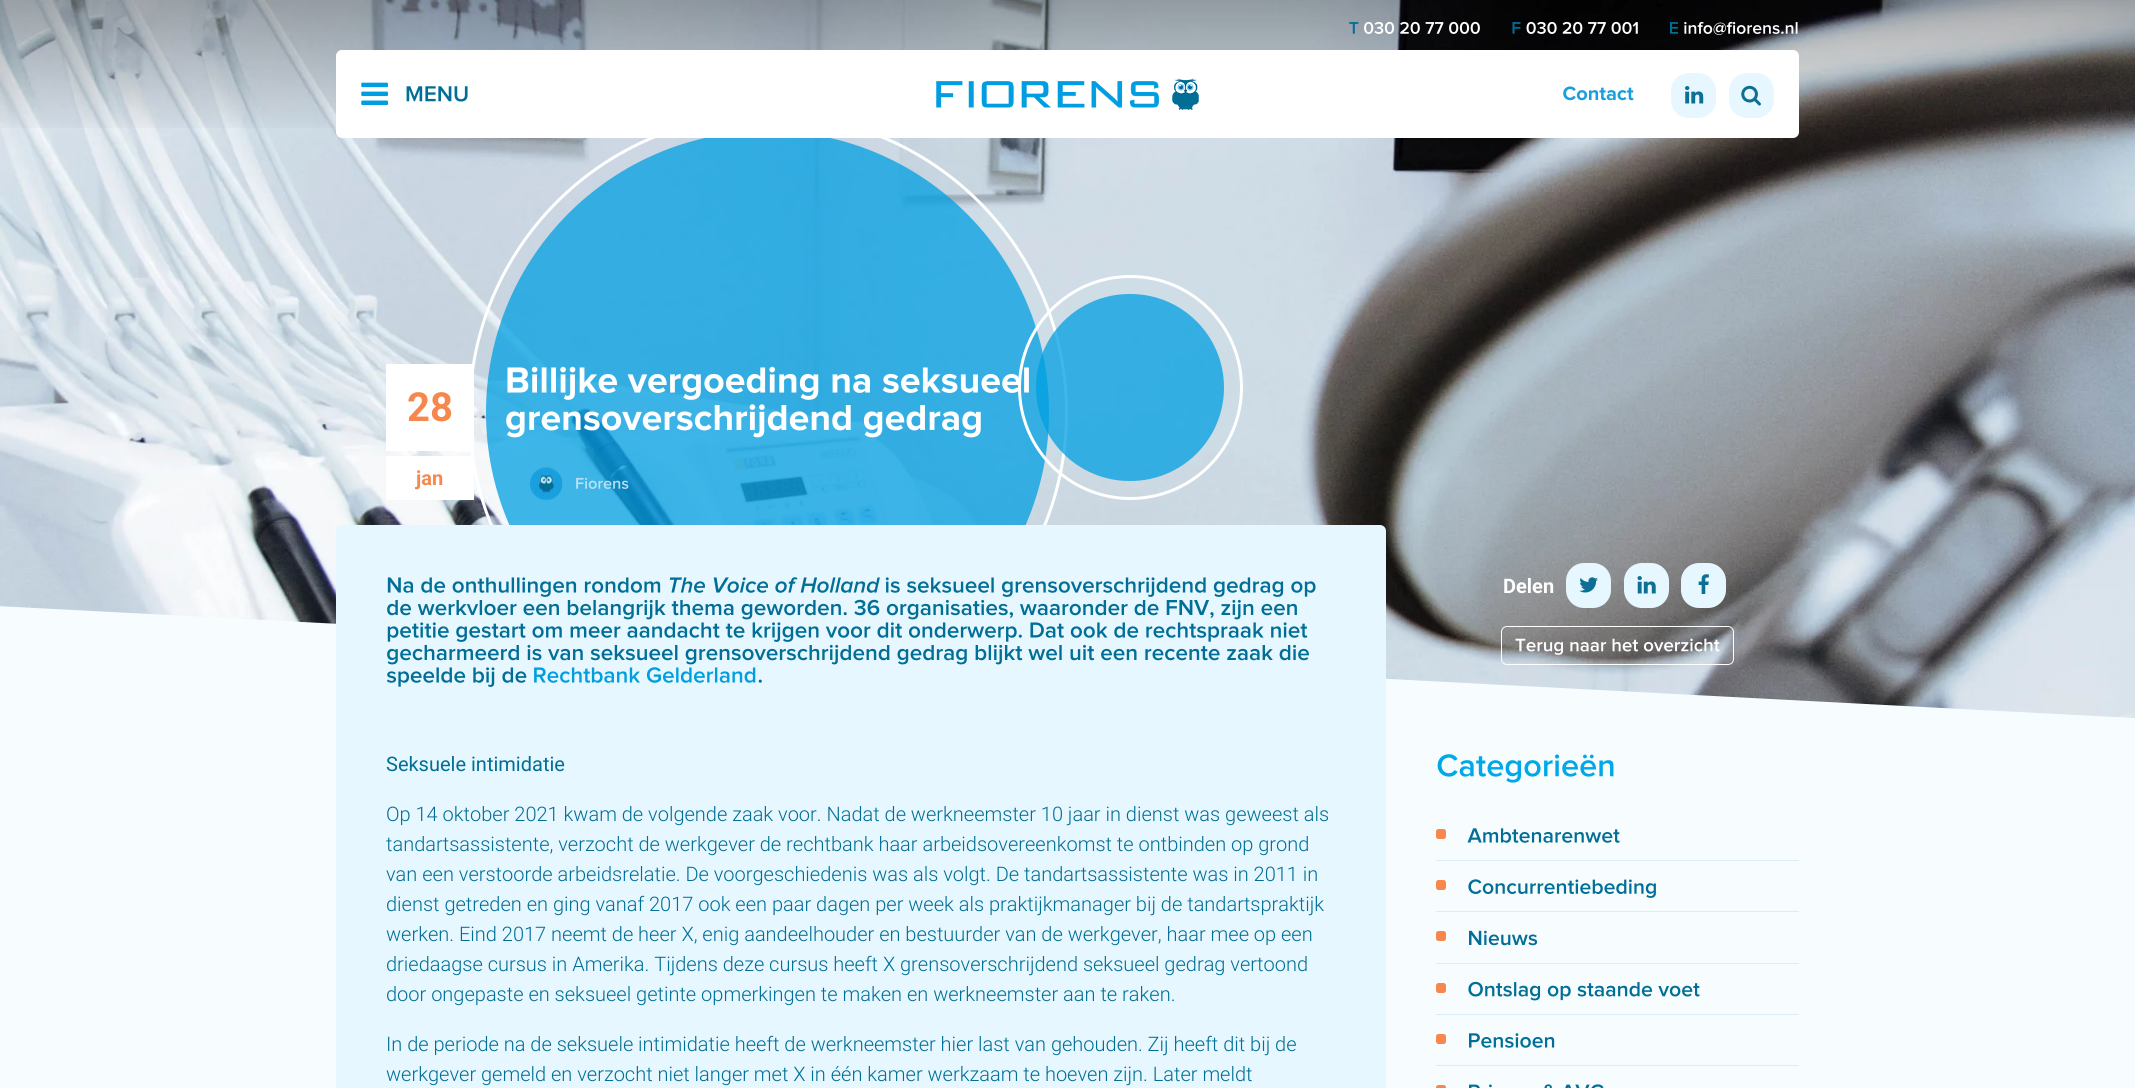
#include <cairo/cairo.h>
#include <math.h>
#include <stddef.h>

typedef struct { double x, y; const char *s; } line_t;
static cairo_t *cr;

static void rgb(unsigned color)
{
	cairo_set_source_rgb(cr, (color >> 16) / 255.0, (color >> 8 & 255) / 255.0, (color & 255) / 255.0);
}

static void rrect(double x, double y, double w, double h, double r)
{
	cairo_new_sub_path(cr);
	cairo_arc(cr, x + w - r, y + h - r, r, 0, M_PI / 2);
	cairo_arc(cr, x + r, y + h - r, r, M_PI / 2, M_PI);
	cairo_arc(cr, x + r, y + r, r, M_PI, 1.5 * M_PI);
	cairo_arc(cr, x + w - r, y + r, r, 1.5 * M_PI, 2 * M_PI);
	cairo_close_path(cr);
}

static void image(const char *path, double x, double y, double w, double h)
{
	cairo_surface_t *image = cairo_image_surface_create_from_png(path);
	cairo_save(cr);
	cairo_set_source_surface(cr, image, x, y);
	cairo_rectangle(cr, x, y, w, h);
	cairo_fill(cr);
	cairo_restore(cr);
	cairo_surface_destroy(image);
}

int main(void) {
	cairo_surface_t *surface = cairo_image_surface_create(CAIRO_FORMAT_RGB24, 2135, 1088);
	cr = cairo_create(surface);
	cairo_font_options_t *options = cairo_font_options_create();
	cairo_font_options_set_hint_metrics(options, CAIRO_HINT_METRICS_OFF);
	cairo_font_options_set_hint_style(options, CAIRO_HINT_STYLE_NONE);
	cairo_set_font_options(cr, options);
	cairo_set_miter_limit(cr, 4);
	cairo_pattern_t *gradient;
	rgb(0xf7fdff);
	cairo_paint(cr);
	image("img/13.png", 0, 0, 2135, 719);
	cairo_arc(cr, 768, 413, 298.5, 0, 2 * M_PI);
	rgb(0xffffff);
	cairo_set_line_width(cr, 3);
	cairo_stroke(cr);
	gradient = cairo_pattern_create_linear(1068, 0, 1068, 138);
	cairo_pattern_add_color_stop_rgba(gradient, 0, 0, 0, 0, 0.3);
	cairo_pattern_add_color_stop_rgba(gradient, 1, 0, 0, 0, 0);
	cairo_set_source(cr, gradient);
	cairo_pattern_destroy(gradient);
	cairo_rectangle(cr, 0, 0, 2135, 128);
	cairo_fill(cr);
	image("img/1.png", 1349, 22, 10, 12);
	image("img/2.png", 1364, 21, 116, 13);
	image("img/3.png", 1512, 22, 9, 12);
	image("img/4.png", 1526, 21, 112, 13);
	image("img/5.png", 1670, 22, 8, 12);
	image("img/6.png", 1684, 21, 114, 14);
	cairo_set_source_rgba(cr, 0, 0.62, 0.882, 0.75);
	cairo_arc(cr, 767.5, 412.5, 281.5, 0, 2 * M_PI);
	cairo_fill(cr);
	rgb(0xffffff);
	rrect(336, 50, 1463, 88, 6);
	cairo_fill(cr);
	image("img/7.png", 361, 82, 28, 23);
	image("img/8.png", 406, 86, 62, 16);
	image("img/9.png", 936, 78, 263, 32);
	image("img/10.png", 1563, 86, 71, 15);
	rgb(0xe6f7ff);
	rrect(1671, 73, 45, 45, 18);
	cairo_fill(cr);
	image("img/11.png", 1685, 86, 19, 18);
	rrect(1729, 73, 45, 45, 18);
	cairo_fill(cr);
	image("img/12.png", 1741, 85, 20, 21);
	cairo_arc(cr, 1130.5, 387.5, 111, 0, 2 * M_PI);
	rgb(0xffffff);
	cairo_stroke(cr);
	cairo_set_source_rgba(cr, 0, 0.62, 0.882, 0.75);
	rrect(1036, 294, 188, 187, 93.5);
	cairo_fill(cr);
	rgb(0xffffff);
	cairo_rectangle(cr, 386, 364, 88, 87);
	cairo_fill(cr);
	cairo_rectangle(cr, 386, 456, 88, 44);
	cairo_fill(cr);
	image("img/14.png", 507, 366, 522, 34);
	image("img/15.png", 506, 404, 475, 34);
	image("img/16.png", 530, 467, 33, 34);
	image("img/17.png", 576, 477, 53, 12);
	cairo_save(cr);
	cairo_rectangle(cr, 0, 0, 2135, 750);
	cairo_clip(cr);
	rgb(0xf7fdff);
	cairo_new_path(cr);
	cairo_move_to(cr, -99, 601);
	cairo_line_to(cr, 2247, 724);
	cairo_line_to(cr, 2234, 974);
	cairo_line_to(cr, -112, 851);
	cairo_close_path(cr);
	cairo_fill(cr);
	cairo_restore(cr);
	rgb(0xe6f7ff);
	rrect(1566, 563, 45, 45, 18);
	cairo_fill(cr);
	image("img/18.png", 1579, 577, 19, 16);
	rrect(1624, 563, 45, 45, 18);
	cairo_fill(cr);
	image("img/19.png", 1637, 576, 19, 18);
	rrect(1681, 563, 45, 45, 18);
	cairo_fill(cr);
	image("img/20.png", 1698, 574, 11, 20);
	rrect(1501.5, 626.5, 232, 38, 5.5);
	rgb(0xffffff);
	cairo_set_line_width(cr, 1);
	cairo_stroke(cr);
	image("img/21.png", 1515, 638, 205, 17);
	image("img/22.png", 1437, 754, 177, 29);
	rgb(0xdceef5);
	cairo_rectangle(cr, 1436, 860, 363, 1);
	cairo_fill(cr);
	rgb(0xf7884d);
	rrect(1436, 829, 10, 10, 2.5);
	cairo_fill(cr);
	image("img/23.png", 1467, 828, 153, 15);
	rgb(0xdceef5);
	cairo_rectangle(cr, 1436, 911, 363, 1);
	cairo_fill(cr);
	rgb(0xf7884d);
	rrect(1436, 880, 10, 10, 2.5);
	cairo_fill(cr);
	image("img/24.png", 1468, 879, 188, 19);
	rgb(0xdceef5);
	cairo_rectangle(cr, 1436, 963, 363, 1);
	cairo_fill(cr);
	rgb(0xf7884d);
	rrect(1436, 931, 10, 10, 2.5);
	cairo_fill(cr);
	image("img/25.png", 1469, 930, 69, 16);
	rgb(0xdceef5);
	cairo_rectangle(cr, 1436, 1014, 363, 1);
	cairo_fill(cr);
	rgb(0xf7884d);
	rrect(1436, 983, 10, 10, 2.5);
	cairo_fill(cr);
	image("img/26.png", 1468, 981, 232, 20);
	rgb(0xdceef5);
	cairo_rectangle(cr, 1436, 1065, 363, 1);
	cairo_fill(cr);
	rgb(0xf7884d);
	rrect(1436, 1034, 10, 10, 2.5);
	cairo_fill(cr);
	image("img/27.png", 1469, 1033, 86, 15);
	rrect(1436, 1085, 10, 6, 2.5);
	cairo_fill(cr);
	image("img/28.png", 1469, 1084, 135, 4);
	rgb(0xe6f7ff);
	rrect(336, 525, 1050, 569, 6);
	cairo_fill(cr);
	image("img/29.png", 387, 577, 274, 20);
	image("img/30.png", 669, 577, 211, 16);
	image("img/31.png", 885, 577, 431, 20);
	image("img/32.png", 387, 599, 910, 21);
	image("img/33.png", 387, 622, 921, 20);
	image("img/34.png", 387, 644, 922, 21);
	image("img/35.png", 387, 667, 140, 20);
	image("img/36.png", 534, 667, 222, 16);
	image("img/37.png", 758, 679, 4, 4);
	cairo_select_font_face(cr, "Roboto", CAIRO_FONT_SLANT_NORMAL, CAIRO_FONT_WEIGHT_BOLD);
	cairo_set_font_size(cr, 40);
	rgb(0xf7884d);
	cairo_move_to(cr, 407, 421);
	cairo_show_text(cr, "28");
	cairo_set_font_size(cr, 20);
	cairo_move_to(cr, 416, 485);
	cairo_show_text(cr, "jan");
	rgb(0xffffff);
	cairo_move_to(cr, 1503, 593);
	cairo_show_text(cr, "Delen");
	cairo_select_font_face(cr, "Roboto", CAIRO_FONT_SLANT_NORMAL, CAIRO_FONT_WEIGHT_NORMAL);
	rgb(0x006e96);
	cairo_move_to(cr, 386, 771);
	cairo_show_text(cr, "Seksuele intimidatie");
	cairo_select_font_face(cr, "Roboto Light", CAIRO_FONT_SLANT_NORMAL, CAIRO_FONT_WEIGHT_NORMAL);
	{
		static const line_t items[] = {
			{386, 821, "Op 14 oktober 2021 kwam de volgende zaak voor. Nadat de werkneemster 10 jaar in dienst was geweest als"},
			{386, 851, "tandartsassistente, verzocht de werkgever de rechtbank haar arbeidsovereenkomst te ontbinden op grond"},
			{386, 881, "van een verstoorde arbeidsrelatie. De voorgeschiedenis was als volgt. De tandartsassistente was in 2011 in"},
			{386, 911, "dienst getreden en ging vanaf 2017 ook een paar dagen per week als praktijkmanager bij de tandartspraktijk"},
			{386, 941, "werken. Eind 2017 neemt de heer X, enig aandeelhouder en bestuurder van de werkgever, haar mee op een"},
			{386, 971, "driedaagse cursus in Amerika. Tijdens deze cursus heeft X grensoverschrijdend seksueel gedrag vertoond"},
			{386, 1001, "door ongepaste en seksueel getinte opmerkingen te maken en werkneemster aan te raken."},
			{386, 1051, "In de periode na de seksuele intimidatie heeft de werkneemster hier last van gehouden. Zij heeft dit bij de"},
			{386, 1081, "werkgever gemeld en verzocht niet langer met X in één kamer werkzaam te hoeven zijn. Later meldt"},
		};
		for (size_t i = 0; i < sizeof items / sizeof *items; i++) {
			cairo_move_to(cr, items[i].x, items[i].y);
			cairo_show_text(cr, items[i].s);
		}
	}
	cairo_surface_write_to_png(surface, "page.png");
	cairo_font_options_destroy(options);
	cairo_destroy(cr);
	cairo_surface_destroy(surface);
	return 0;
}
